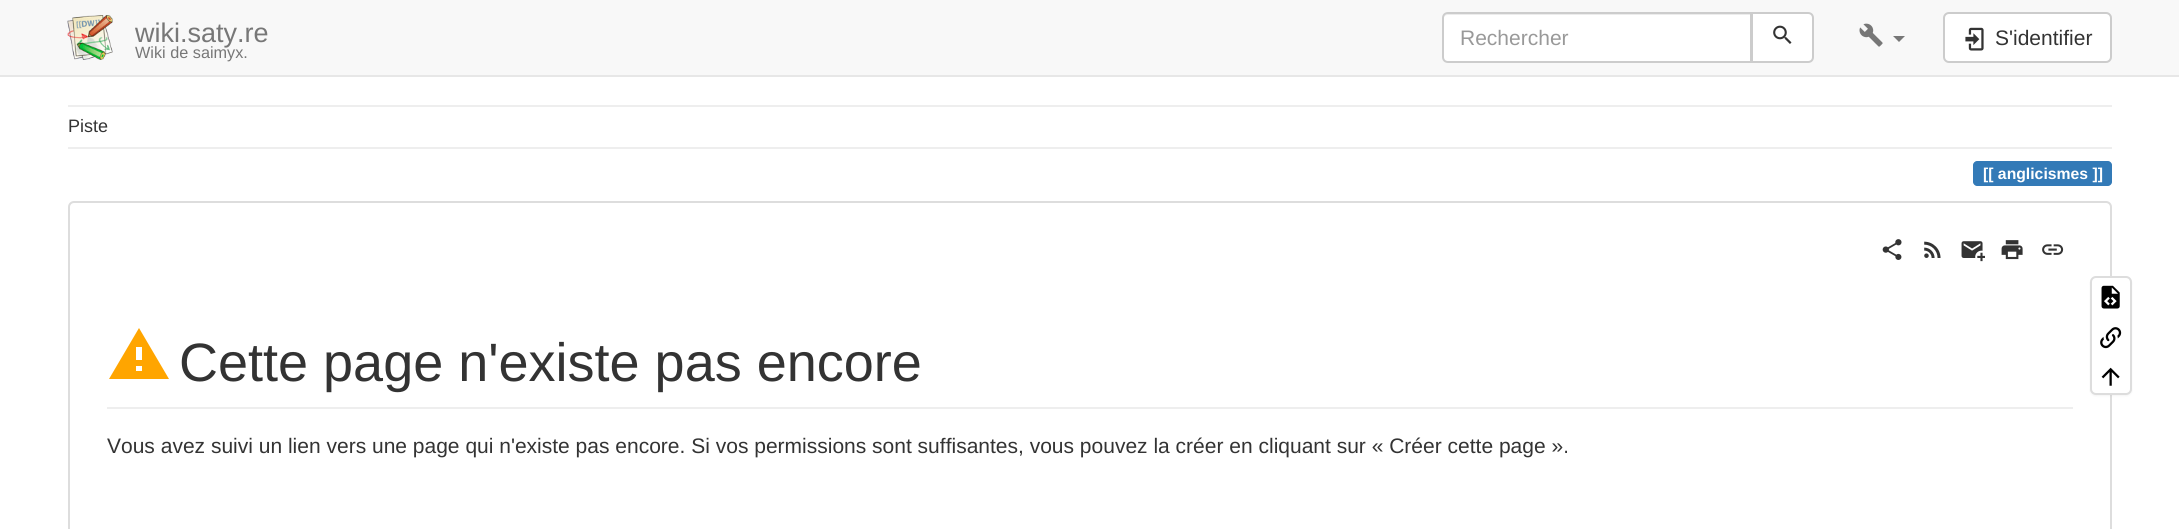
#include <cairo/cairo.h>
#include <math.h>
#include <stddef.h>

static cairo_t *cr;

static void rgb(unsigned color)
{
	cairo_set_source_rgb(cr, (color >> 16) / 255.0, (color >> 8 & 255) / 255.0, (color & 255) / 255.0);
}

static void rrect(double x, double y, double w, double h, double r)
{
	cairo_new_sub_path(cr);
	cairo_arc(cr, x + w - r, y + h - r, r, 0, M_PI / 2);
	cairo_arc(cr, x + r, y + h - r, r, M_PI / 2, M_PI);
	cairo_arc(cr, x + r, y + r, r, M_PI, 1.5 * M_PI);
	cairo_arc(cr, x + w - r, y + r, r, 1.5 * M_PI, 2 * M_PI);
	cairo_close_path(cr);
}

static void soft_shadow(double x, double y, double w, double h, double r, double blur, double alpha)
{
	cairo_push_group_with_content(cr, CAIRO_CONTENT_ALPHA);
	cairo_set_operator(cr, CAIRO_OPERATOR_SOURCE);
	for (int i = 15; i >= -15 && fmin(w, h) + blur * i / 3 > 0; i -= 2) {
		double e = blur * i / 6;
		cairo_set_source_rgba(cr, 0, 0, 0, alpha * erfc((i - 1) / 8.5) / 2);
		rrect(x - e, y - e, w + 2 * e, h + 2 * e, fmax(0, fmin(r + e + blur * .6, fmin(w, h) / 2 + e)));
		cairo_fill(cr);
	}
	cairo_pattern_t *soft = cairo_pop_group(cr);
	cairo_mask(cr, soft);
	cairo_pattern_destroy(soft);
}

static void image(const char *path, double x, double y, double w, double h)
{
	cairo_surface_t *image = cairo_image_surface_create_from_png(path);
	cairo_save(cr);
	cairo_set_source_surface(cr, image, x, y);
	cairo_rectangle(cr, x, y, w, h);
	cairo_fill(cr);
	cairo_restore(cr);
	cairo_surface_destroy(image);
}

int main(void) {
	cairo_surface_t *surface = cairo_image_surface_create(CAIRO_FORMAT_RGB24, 2179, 529);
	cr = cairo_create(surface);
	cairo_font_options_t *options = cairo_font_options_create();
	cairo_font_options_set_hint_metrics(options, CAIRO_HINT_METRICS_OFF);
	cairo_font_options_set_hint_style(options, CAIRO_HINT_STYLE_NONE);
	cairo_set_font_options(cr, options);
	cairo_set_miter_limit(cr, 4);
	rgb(0xffffff);
	cairo_paint(cr);
	rgb(0xf8f8f8);
	cairo_rectangle(cr, 0, 0, 2179, 75);
	cairo_fill(cr);
	rgb(0xe7e7e7);
	cairo_rectangle(cr, 0, 75, 2179, 2);
	cairo_fill(cr);
	image("img/1.png", 67, 15, 46, 45);
	rgb(0xffffff);
	cairo_new_path(cr);
	cairo_move_to(cr, 1448, 12);
	cairo_line_to(cr, 1752, 12);
	cairo_line_to(cr, 1752, 63);
	cairo_line_to(cr, 1448, 63);
	cairo_curve_to(cr, 1444.5, 63, 1442, 60.5, 1442, 57);
	cairo_line_to(cr, 1442, 18);
	cairo_curve_to(cr, 1442, 14.5, 1444.5, 12, 1448, 12);
	cairo_close_path(cr);
	cairo_fill(cr);
	rgb(0xececec);
	cairo_new_path(cr);
	cairo_move_to(cr, 1448, 15);
	cairo_line_to(cr, 1750, 15);
	cairo_line_to(cr, 1750, 62);
	cairo_line_to(cr, 1751, 62);
	cairo_line_to(cr, 1751, 14);
	cairo_line_to(cr, 1448, 14);
	cairo_curve_to(cr, 1445, 14, 1443, 17, 1443, 20);
	cairo_curve_to(cr, 1443, 17, 1445, 15, 1448, 15);
	cairo_close_path(cr);
	cairo_fill(cr);
	cairo_new_path(cr);
	cairo_move_to(cr, 1448, 13);
	cairo_line_to(cr, 1751, 13);
	cairo_line_to(cr, 1751, 62);
	cairo_line_to(cr, 1448, 62);
	cairo_curve_to(cr, 1445, 62, 1443, 60, 1443, 57);
	cairo_line_to(cr, 1443, 18);
	cairo_curve_to(cr, 1443, 15, 1445, 13, 1448, 13);
	cairo_close_path(cr);
	rgb(0xcccccc);
	cairo_stroke(cr);
	rgb(0xffffff);
	cairo_new_path(cr);
	cairo_move_to(cr, 1752, 13);
	cairo_line_to(cr, 1808, 13);
	cairo_curve_to(cr, 1811, 13, 1813, 15, 1813, 18);
	cairo_line_to(cr, 1813, 57);
	cairo_curve_to(cr, 1813, 60, 1811, 62, 1808, 62);
	cairo_line_to(cr, 1752, 62);
	cairo_close_path(cr);
	cairo_fill_preserve(cr);
	rgb(0xcccccc);
	cairo_stroke(cr);
	image("img/2.png", 1773, 25, 19, 19);
	image("img/3.png", 1859, 23, 24, 24);
	rgb(0x777777);
	cairo_new_path(cr);
	cairo_move_to(cr, 1893, 36);
	cairo_line_to(cr, 1905, 36);
	cairo_line_to(cr, 1899, 42);
	cairo_close_path(cr);
	cairo_fill(cr);
	rgb(0xffffff);
	rrect(1944, 13, 167, 49, 5);
	cairo_fill_preserve(cr);
	rgb(0xcccccc);
	cairo_stroke(cr);
	image("img/4.png", 1965, 27, 19, 24);
	rgb(0xeeeeee);
	cairo_rectangle(cr, 68, 105, 2044, 2);
	cairo_fill(cr);
	cairo_rectangle(cr, 68, 147, 2044, 2);
	cairo_fill(cr);
	rgb(0x337ab7);
	cairo_new_path(cr);
	cairo_move_to(cr, 1977, 161);
	cairo_line_to(cr, 1998, 161);
	cairo_line_to(cr, 1998, 186);
	cairo_line_to(cr, 1977, 186);
	cairo_curve_to(cr, 1975, 186, 1973, 184, 1973, 182);
	cairo_line_to(cr, 1973, 165);
	cairo_curve_to(cr, 1973, 163, 1975, 161, 1977, 161);
	cairo_close_path(cr);
	cairo_fill(cr);
	cairo_rectangle(cr, 1998, 161, 90, 25);
	cairo_fill(cr);
	cairo_new_path(cr);
	cairo_move_to(cr, 2088, 161);
	cairo_line_to(cr, 2108, 161);
	cairo_curve_to(cr, 2110, 161, 2112, 163, 2112, 165);
	cairo_line_to(cr, 2112, 182);
	cairo_curve_to(cr, 2112, 184, 2110, 186, 2108, 186);
	cairo_line_to(cr, 2088, 186);
	cairo_close_path(cr);
	cairo_fill(cr);
	rrect(69, 202, 2042, 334, 5);
	rgb(0xdddddd);
	cairo_stroke(cr);
	image("img/5.png", 1882, 239, 20, 21);
	image("img/6.png", 1924, 241, 17, 17);
	image("img/7.png", 1961, 241, 24, 21);
	image("img/8.png", 2001, 240, 22, 20);
	image("img/9.png", 2042, 244, 22, 11);
	rgb(0xeeeeee);
	cairo_rectangle(cr, 107, 407, 1966, 2);
	cairo_fill(cr);
	rgb(0xffa500);
	cairo_new_path(cr);
	cairo_move_to(cr, 142, 360);
	cairo_line_to(cr, 136, 360);
	cairo_line_to(cr, 136, 347);
	cairo_line_to(cr, 142, 347);
	cairo_move_to(cr, 142, 371);
	cairo_line_to(cr, 136, 371);
	cairo_line_to(cr, 136, 366);
	cairo_line_to(cr, 142, 366);
	cairo_move_to(cr, 109, 379);
	cairo_line_to(cr, 169, 379);
	cairo_line_to(cr, 139, 328);
	cairo_close_path(cr);
	cairo_fill(cr);
	rgb(0x000000);
	soft_shadow(2090, 278, 42, 118, 6, 1, 0.05);
	rgb(0xffffff);
	rrect(2091, 277, 40, 117, 5);
	cairo_fill_preserve(cr);
	rgb(0xdddddd);
	cairo_stroke(cr);
	image("img/10.png", 2101, 285, 19, 24);
	image("img/11.png", 2100, 327, 22, 22);
	image("img/12.png", 2101, 367, 19, 19);
	cairo_select_font_face(cr, "Liberation Sans", CAIRO_FONT_SLANT_NORMAL, CAIRO_FONT_WEIGHT_NORMAL);
	cairo_set_font_size(cr, 27);
	rgb(0x777777);
	cairo_move_to(cr, 135, 42);
	cairo_show_text(cr, "wiki.saty.re");
	cairo_set_font_size(cr, 16.25);
	cairo_move_to(cr, 135, 58);
	cairo_show_text(cr, "Wiki de saimyx.");
	cairo_set_font_size(cr, 21);
	rgb(0x999999);
	cairo_move_to(cr, 1460, 45);
	cairo_show_text(cr, "Rechercher");
	rgb(0x333333);
	cairo_move_to(cr, 1995, 45);
	cairo_show_text(cr, "S'identifier");
	cairo_set_font_size(cr, 18);
	cairo_move_to(cr, 68, 132);
	cairo_show_text(cr, "Piste");
	cairo_select_font_face(cr, "Liberation Sans", CAIRO_FONT_SLANT_NORMAL, CAIRO_FONT_WEIGHT_BOLD);
	cairo_set_font_size(cr, 15.75);
	rgb(0xffffff);
	cairo_move_to(cr, 1983, 179);
	cairo_show_text(cr, "[[ anglicismes ]]");
	cairo_select_font_face(cr, "Liberation Sans", CAIRO_FONT_SLANT_NORMAL, CAIRO_FONT_WEIGHT_NORMAL);
	cairo_set_font_size(cr, 54);
	rgb(0x333333);
	cairo_move_to(cr, 179, 381);
	cairo_show_text(cr, "Cette page n'existe pas encore");
	cairo_set_font_size(cr, 21);
	cairo_move_to(cr, 107, 453);
	cairo_show_text(cr, "Vous avez suivi un lien vers une page qui n'existe pas encore. Si vos permissions sont suffisantes, vous pouvez la créer en cliquant sur « Créer cette page ».");
	cairo_surface_write_to_png(surface, "page.png");
	cairo_font_options_destroy(options);
	cairo_destroy(cr);
	cairo_surface_destroy(surface);
	return 0;
}
